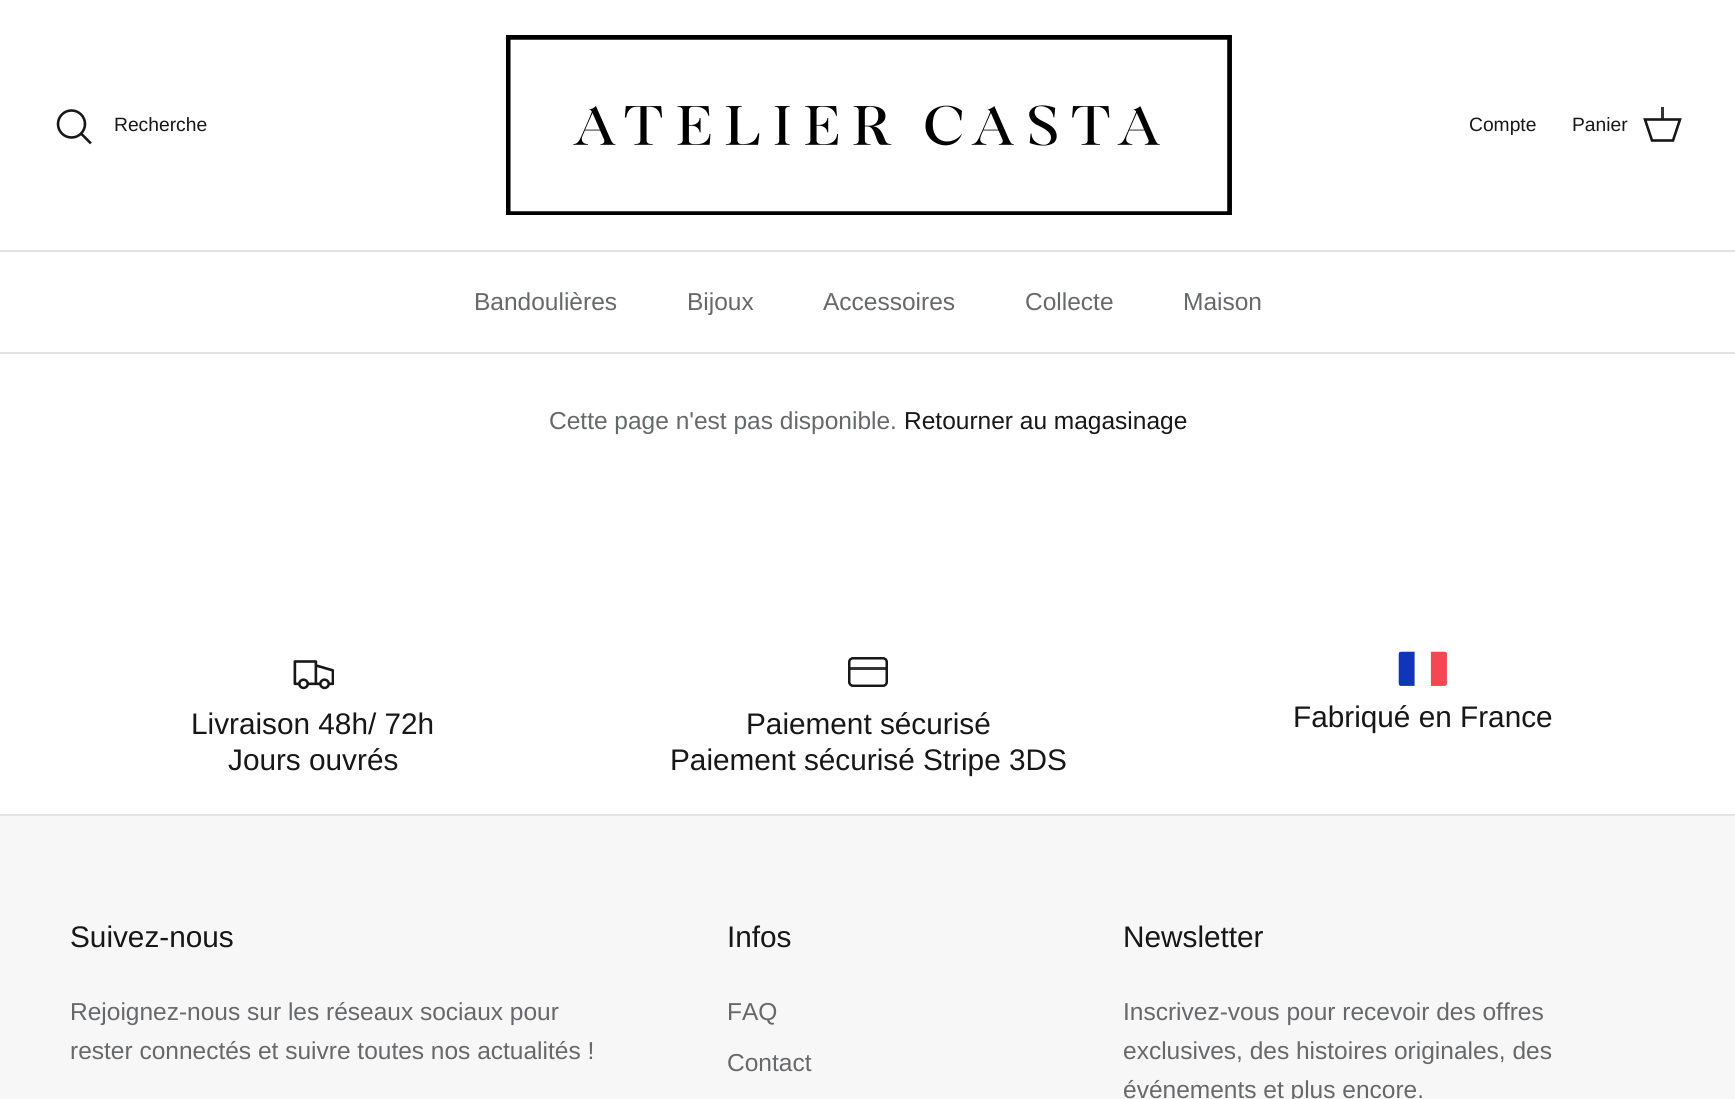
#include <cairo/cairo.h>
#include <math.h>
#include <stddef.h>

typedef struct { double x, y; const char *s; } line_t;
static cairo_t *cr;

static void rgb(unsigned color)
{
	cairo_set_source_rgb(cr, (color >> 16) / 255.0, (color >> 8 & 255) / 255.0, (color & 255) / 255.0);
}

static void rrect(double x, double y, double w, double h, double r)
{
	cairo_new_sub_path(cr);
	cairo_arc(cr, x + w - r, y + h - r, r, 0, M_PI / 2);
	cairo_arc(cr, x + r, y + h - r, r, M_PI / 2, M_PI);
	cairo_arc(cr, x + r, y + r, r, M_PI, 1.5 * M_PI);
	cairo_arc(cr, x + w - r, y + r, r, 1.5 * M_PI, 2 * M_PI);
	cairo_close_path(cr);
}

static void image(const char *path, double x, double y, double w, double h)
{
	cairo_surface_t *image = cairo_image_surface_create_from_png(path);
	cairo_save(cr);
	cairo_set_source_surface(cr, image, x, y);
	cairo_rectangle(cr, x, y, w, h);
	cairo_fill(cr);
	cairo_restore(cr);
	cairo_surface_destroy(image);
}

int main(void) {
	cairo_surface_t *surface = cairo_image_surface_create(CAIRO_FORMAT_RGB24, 1735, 1099);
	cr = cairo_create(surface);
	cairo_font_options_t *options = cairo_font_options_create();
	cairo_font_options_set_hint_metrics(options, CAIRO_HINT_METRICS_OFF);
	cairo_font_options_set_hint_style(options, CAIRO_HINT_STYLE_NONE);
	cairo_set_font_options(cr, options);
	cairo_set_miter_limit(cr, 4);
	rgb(0xffffff);
	cairo_paint(cr);
	rgb(0xe2e2e2);
	cairo_rectangle(cr, 0, 250, 1735, 2);
	cairo_fill(cr);
	cairo_arc(cr, 71.5, 124, 13.5, 0, 2 * M_PI);
	rgb(0x171717);
	cairo_set_line_width(cr, 2.6);
	cairo_stroke(cr);
	cairo_new_path(cr);
	cairo_move_to(cr, 82, 134.5);
	cairo_line_to(cr, 90, 142.5);
	cairo_set_line_cap(cr, CAIRO_LINE_CAP_SQUARE);
	cairo_stroke(cr);
	image("img/1.png", 506, 35, 726, 180);
	cairo_new_path(cr);
	cairo_move_to(cr, 1645, 119.5);
	cairo_line_to(cr, 1680, 119.5);
	cairo_line_to(cr, 1673, 140.5);
	cairo_line_to(cr, 1652, 140.5);
	cairo_close_path(cr);
	cairo_set_line_cap(cr, CAIRO_LINE_CAP_BUTT);
	cairo_stroke(cr);
	cairo_set_source_rgba(cr, 0.09, 0.09, 0.09, 0.87);
	cairo_rectangle(cr, 1661, 107, 3, 13);
	cairo_fill(cr);
	rgb(0xe2e2e2);
	cairo_rectangle(cr, 0, 352, 1735, 2);
	cairo_fill(cr);
	rgb(0xf7f7f8);
	cairo_rectangle(cr, 0, 816, 1735, 283);
	cairo_fill(cr);
	image("img/2.png", 293, 660, 41, 30);
	rrect(849.25, 658.25, 37.5, 27.5, 3.75);
	rgb(0x171717);
	cairo_set_line_width(cr, 2.5);
	cairo_stroke(cr);
	cairo_set_source_rgba(cr, 0.09, 0.09, 0.09, 0.87);
	cairo_rectangle(cr, 850, 667, 37, 3);
	cairo_fill(cr);
	image("img/3.png", 1398, 651, 49, 35);
	rgb(0xe4e4e4);
	cairo_rectangle(cr, 0, 814, 1735, 2);
	cairo_fill(cr);
	cairo_select_font_face(cr, "Arimo", CAIRO_FONT_SLANT_NORMAL, CAIRO_FONT_WEIGHT_NORMAL);
	cairo_set_font_size(cr, 19.25);
	rgb(0x171717);
	{
		static const line_t items[] = {
			{114, 131, "Recherche"},
			{1469, 131, "Compte"},
			{1572, 131, "Panier"},
		};
		for (size_t i = 0; i < sizeof items / sizeof *items; i++) {
			cairo_move_to(cr, items[i].x, items[i].y);
			cairo_show_text(cr, items[i].s);
		}
	}
	cairo_set_font_size(cr, 24.5);
	rgb(0x676869);
	{
		static const line_t items[] = {
			{474, 310, "Bandoulières"},
			{687, 310, "Bijoux"},
			{823, 310, "Accessoires"},
			{1025, 310, "Collecte"},
			{1183, 310, "Maison"},
			{549, 429, "Cette page n'est pas disponible."},
		};
		for (size_t i = 0; i < sizeof items / sizeof *items; i++) {
			cairo_move_to(cr, items[i].x, items[i].y);
			cairo_show_text(cr, items[i].s);
		}
	}
	rgb(0x171717);
	cairo_move_to(cr, 904, 429);
	cairo_show_text(cr, "Retourner au magasinage");
	cairo_set_font_size(cr, 29.75);
	{
		static const line_t items[] = {
			{191, 734, "Livraison 48h/ 72h"},
			{228, 770, "Jours ouvrés"},
			{746, 734, "Paiement sécurisé"},
			{670, 770, "Paiement sécurisé Stripe 3DS"},
			{1293, 727, "Fabriqué en France"},
			{70, 947, "Suivez-nous"},
		};
		for (size_t i = 0; i < sizeof items / sizeof *items; i++) {
			cairo_move_to(cr, items[i].x, items[i].y);
			cairo_show_text(cr, items[i].s);
		}
	}
	cairo_set_font_size(cr, 24.5);
	rgb(0x676869);
	cairo_move_to(cr, 70, 1020);
	cairo_show_text(cr, "Rejoignez-nous sur les réseaux sociaux pour");
	cairo_move_to(cr, 70, 1059);
	cairo_show_text(cr, "rester connectés et suivre toutes nos actualités !");
	cairo_set_font_size(cr, 29.75);
	rgb(0x171717);
	cairo_move_to(cr, 727, 947);
	cairo_show_text(cr, "Infos");
	cairo_set_font_size(cr, 24.5);
	rgb(0x676869);
	cairo_move_to(cr, 727, 1020);
	cairo_show_text(cr, "FAQ");
	cairo_move_to(cr, 727, 1071);
	cairo_show_text(cr, "Contact");
	cairo_set_font_size(cr, 29.75);
	rgb(0x171717);
	cairo_move_to(cr, 1123, 947);
	cairo_show_text(cr, "Newsletter");
	cairo_set_font_size(cr, 24.5);
	rgb(0x676869);
	{
		static const line_t items[] = {
			{1123, 1020, "Inscrivez-vous pour recevoir des offres"},
			{1123, 1059, "exclusives, des histoires originales, des"},
			{1123, 1098, "événements et plus encore."},
		};
		for (size_t i = 0; i < sizeof items / sizeof *items; i++) {
			cairo_move_to(cr, items[i].x, items[i].y);
			cairo_show_text(cr, items[i].s);
		}
	}
	cairo_surface_write_to_png(surface, "page.png");
	cairo_font_options_destroy(options);
	cairo_destroy(cr);
	cairo_surface_destroy(surface);
	return 0;
}
